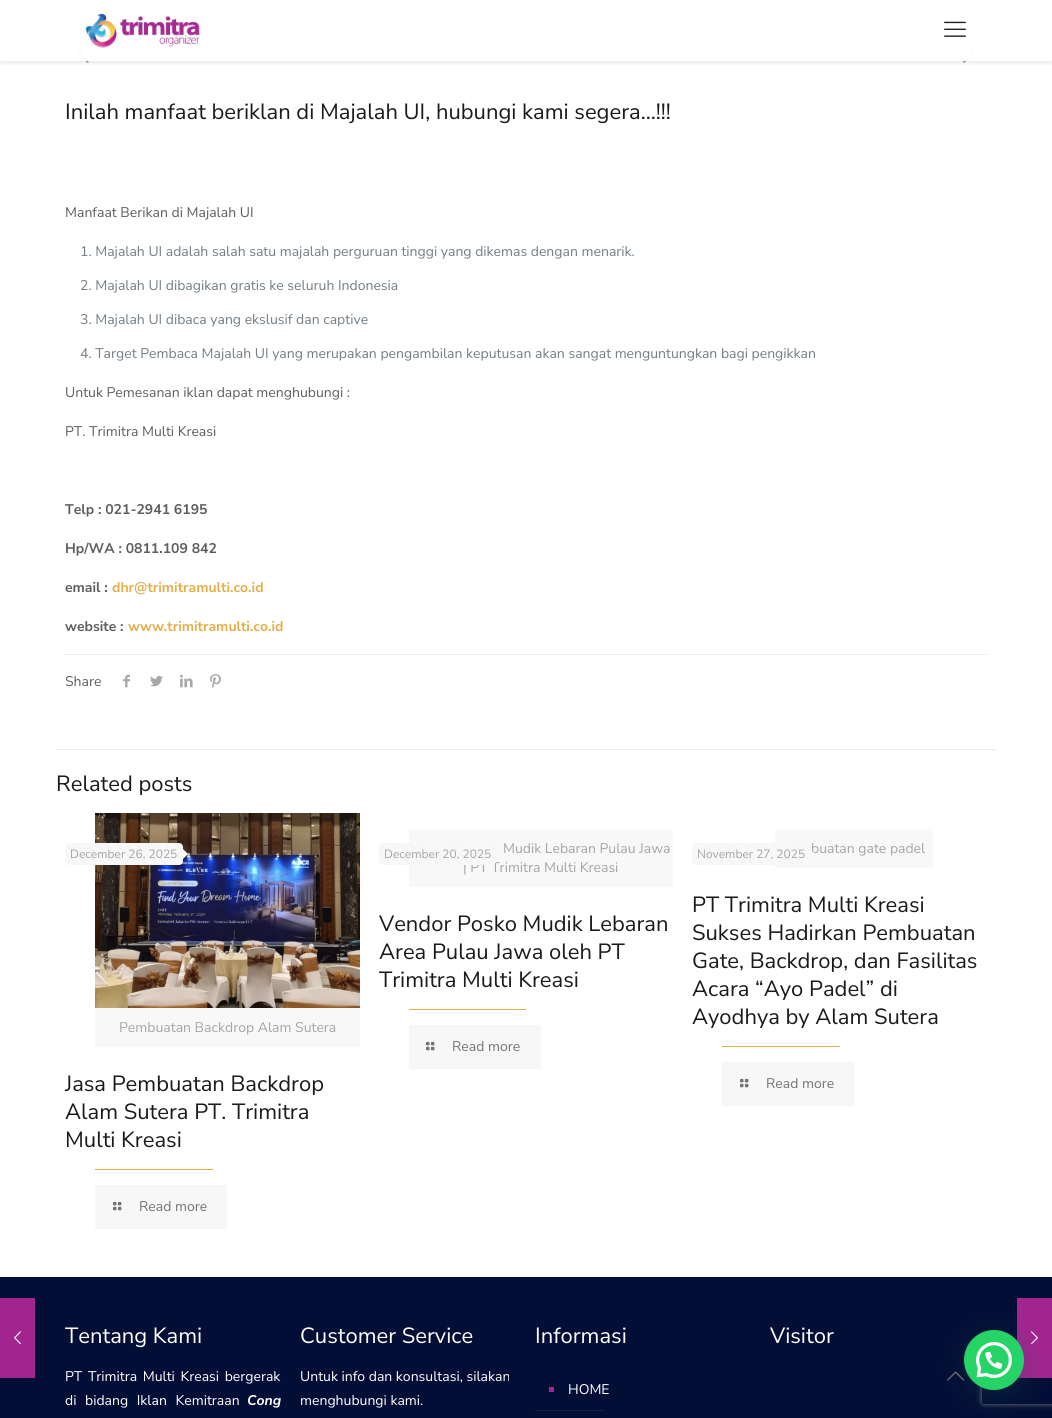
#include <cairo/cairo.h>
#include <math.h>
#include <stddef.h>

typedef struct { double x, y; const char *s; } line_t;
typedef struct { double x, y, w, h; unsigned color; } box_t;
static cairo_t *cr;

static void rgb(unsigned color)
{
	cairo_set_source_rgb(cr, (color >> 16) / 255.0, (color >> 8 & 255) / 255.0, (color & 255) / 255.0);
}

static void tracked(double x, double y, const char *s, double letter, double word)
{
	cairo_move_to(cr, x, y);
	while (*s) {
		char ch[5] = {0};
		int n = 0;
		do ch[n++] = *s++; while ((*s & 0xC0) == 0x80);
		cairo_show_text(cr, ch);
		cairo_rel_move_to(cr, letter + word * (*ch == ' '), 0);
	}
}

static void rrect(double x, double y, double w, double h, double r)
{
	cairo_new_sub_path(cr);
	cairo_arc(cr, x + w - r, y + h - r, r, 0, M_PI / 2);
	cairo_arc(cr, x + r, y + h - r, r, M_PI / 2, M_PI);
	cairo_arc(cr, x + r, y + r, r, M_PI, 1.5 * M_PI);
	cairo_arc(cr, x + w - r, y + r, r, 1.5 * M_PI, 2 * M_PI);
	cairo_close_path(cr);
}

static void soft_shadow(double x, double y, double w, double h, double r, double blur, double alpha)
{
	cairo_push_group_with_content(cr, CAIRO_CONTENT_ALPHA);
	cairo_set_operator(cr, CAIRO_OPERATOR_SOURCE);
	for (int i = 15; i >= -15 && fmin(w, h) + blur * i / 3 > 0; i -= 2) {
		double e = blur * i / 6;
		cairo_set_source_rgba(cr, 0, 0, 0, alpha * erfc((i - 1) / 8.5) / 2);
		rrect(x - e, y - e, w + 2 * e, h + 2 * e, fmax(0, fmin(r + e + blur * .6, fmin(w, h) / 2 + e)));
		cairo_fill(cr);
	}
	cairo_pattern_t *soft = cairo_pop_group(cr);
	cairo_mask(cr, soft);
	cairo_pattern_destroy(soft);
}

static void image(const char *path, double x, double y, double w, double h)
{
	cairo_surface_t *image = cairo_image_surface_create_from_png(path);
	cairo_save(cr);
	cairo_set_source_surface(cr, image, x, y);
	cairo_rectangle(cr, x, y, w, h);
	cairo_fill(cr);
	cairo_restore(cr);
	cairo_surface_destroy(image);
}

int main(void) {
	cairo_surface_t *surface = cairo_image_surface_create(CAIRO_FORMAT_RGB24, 1052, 1418);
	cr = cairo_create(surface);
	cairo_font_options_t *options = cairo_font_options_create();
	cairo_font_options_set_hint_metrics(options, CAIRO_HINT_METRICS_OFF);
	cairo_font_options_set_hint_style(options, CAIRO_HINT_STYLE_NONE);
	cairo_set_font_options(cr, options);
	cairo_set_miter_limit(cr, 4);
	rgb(0xffffff);
	cairo_paint(cr);
	rgb(0x030e36);
	cairo_rectangle(cr, 0, 1277, 1052, 141);
	cairo_fill(cr);
	rgb(0xa2258f);
	cairo_rectangle(cr, 0, 1298, 35, 80);
	cairo_fill(cr);
	image("img/1.png", 14, 1331, 7, 14);
	image("img/4.png", 77, 41, 12, 22);
	image("img/5.png", 963, 41, 12, 22);
	cairo_save(cr);
	cairo_rectangle(cr, 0, 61, 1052, 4);
	cairo_clip(cr);
	rgb(0x000000);
	soft_shadow(0, 2, 1052, 61, 0, 2.5, 0.1);
	cairo_restore(cr);
	image("img/2.png", 85, 13, 115, 35);
	image("img/3.png", 944, 21, 22, 16);
	rgb(0xebebeb);
	cairo_rectangle(cr, 65, 654, 922, 1);
	cairo_fill(cr);
	image("img/6.png", 123, 674, 7, 14);
	image("img/7.png", 150, 675, 13, 12);
	image("img/8.png", 180, 674, 13, 14);
	image("img/9.png", 210, 674, 11, 14);
	cairo_rectangle(cr, 56, 749, 940, 1);
	cairo_fill(cr);
	image("img/11.png", 95, 813, 265, 195);
	rgb(0xf8f8f8);
	rrect(65, 843, 118, 22, 4);
	cairo_fill(cr);
	image("img/10.png", 65, 843, 118, 22);
	cairo_new_path(cr);
	cairo_move_to(cr, 183, 859);
	cairo_line_to(cr, 183, 849);
	cairo_line_to(cr, 188, 854);
	cairo_close_path(cr);
	cairo_fill(cr);
	{
		static const box_t items[] = {
			{95, 1008, 265, 39, 0xf8f8f8},
			{95, 1169, 118, 1, 0xe6ae48},
			{95, 1185, 132, 44, 0xf7f7f7},
		};
		for (size_t i = 0; i < sizeof items / sizeof *items; i++) {
			rgb(items[i].color);
			cairo_rectangle(cr, items[i].x, items[i].y, items[i].w, items[i].h);
			cairo_fill(cr);
		}
	}
	image("img/12.png", 113, 1201, 9, 10);
	{
		static const box_t items[] = {
			{409, 829, 264, 58, 0xf8f8f8},
			{409, 1009, 117, 1, 0xe6ae48},
			{409, 1025, 132, 44, 0xf7f7f7},
		};
		for (size_t i = 0; i < sizeof items / sizeof *items; i++) {
			rgb(items[i].color);
			cairo_rectangle(cr, items[i].x, items[i].y, items[i].w, items[i].h);
			cairo_fill(cr);
		}
	}
	image("img/12.png", 426, 1041, 9, 10);
	rgb(0xf8f8f8);
	cairo_rectangle(cr, 775, 829, 158, 39);
	cairo_fill(cr);
	rrect(692, 843, 118, 22, 4);
	cairo_fill(cr);
	image("img/14.png", 692, 843, 118, 22);
	rgb(0xe6ae48);
	cairo_rectangle(cr, 722, 1046, 118, 1);
	cairo_fill(cr);
	rgb(0xf7f7f7);
	cairo_rectangle(cr, 722, 1062, 132, 44);
	cairo_fill(cr);
	image("img/12.png", 740, 1078, 9, 10);
	rgb(0xa2258f);
	cairo_rectangle(cr, 549, 1387, 5, 5);
	cairo_fill(cr);
	rgb(0x172144);
	cairo_rectangle(cr, 535, 1410, 70, 1);
	cairo_fill(cr);
	cairo_save(cr);
	cairo_set_fill_rule(cr, CAIRO_FILL_RULE_EVEN_ODD);
	cairo_new_path(cr);
	cairo_move_to(cr, 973, 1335);
	cairo_line_to(cr, 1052, 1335);
	cairo_line_to(cr, 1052, 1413);
	cairo_line_to(cr, 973, 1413);
	cairo_close_path(cr);
	cairo_move_to(cr, 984, 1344);
	cairo_line_to(cr, 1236, 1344);
	cairo_curve_to(cr, 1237, 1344, 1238, 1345, 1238, 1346);
	cairo_line_to(cr, 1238, 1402);
	cairo_curve_to(cr, 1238, 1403, 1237, 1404, 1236, 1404);
	cairo_line_to(cr, 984, 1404);
	cairo_curve_to(cr, 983, 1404, 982, 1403, 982, 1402);
	cairo_line_to(cr, 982, 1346);
	cairo_curve_to(cr, 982, 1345, 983, 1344, 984, 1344);
	cairo_close_path(cr);
	cairo_clip(cr);
	rgb(0x808080);
	soft_shadow(982, 1344, 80, 60, 2, 2.5, 1);
	cairo_restore(cr);
	rgb(0xa2258f);
	cairo_rectangle(cr, 1017, 1298, 35, 80);
	cairo_fill(cr);
	image("img/15.png", 1031, 1331, 7, 14);
	rgb(0x075e54);
	soft_shadow(965, 1336, 60, 60, 30, 12, 0.24);
	rgb(0x25d366);
	cairo_arc(cr, 994, 1360, 30, 0, 2 * M_PI);
	cairo_fill(cr);
	image("img/16.png", 976, 1342, 36, 36);
	image("img/17.png", 947, 1371, 18, 10);
	cairo_select_font_face(cr, "Nunito Sans ExtraLight", CAIRO_FONT_SLANT_NORMAL, CAIRO_FONT_WEIGHT_NORMAL);
	cairo_set_font_size(cr, 22);
	rgb(0x1a1a1a);
	cairo_move_to(cr, 65, 119);
	cairo_show_text(cr, "Inilah manfaat beriklan di Majalah UI, hubungi kami segera…!!!");
	cairo_set_font_size(cr, 14);
	rgb(0x5e5e5e);
	cairo_move_to(cr, 65, 217);
	cairo_show_text(cr, "Manfaat Berikan di Majalah UI");
	rgb(0x737e86);
	{
		static const line_t items[] = {
			{80, 256, "1. Majalah UI adalah salah satu majalah perguruan tinggi yang dikemas dengan menarik."},
			{80, 290, "2. Majalah UI dibagikan gratis ke seluruh Indonesia"},
			{80, 324, "3. Majalah UI dibaca yang ekslusif dan captive"},
			{80, 358, "4. Target Pembaca Majalah UI yang merupakan pengambilan keputusan akan sangat menguntungkan bagi pengikkan"},
		};
		for (size_t i = 0; i < sizeof items / sizeof *items; i++) {
			cairo_move_to(cr, items[i].x, items[i].y);
			cairo_show_text(cr, items[i].s);
		}
	}
	rgb(0x5e5e5e);
	cairo_move_to(cr, 65, 397);
	cairo_show_text(cr, "Untuk Pemesanan iklan dapat menghubungi :");
	cairo_move_to(cr, 65, 436);
	cairo_show_text(cr, "PT. Trimitra Multi Kreasi");
	cairo_select_font_face(cr, "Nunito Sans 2 ExtraLight", CAIRO_FONT_SLANT_NORMAL, CAIRO_FONT_WEIGHT_NORMAL);
	{
		static const line_t items[] = {
			{65, 514, "Telp : 021-2941 6195"},
			{65, 553, "Hp/WA : 0811.109 842"},
			{65, 592, "email :"},
		};
		for (size_t i = 0; i < sizeof items / sizeof *items; i++) {
			cairo_move_to(cr, items[i].x, items[i].y);
			cairo_show_text(cr, items[i].s);
		}
	}
	rgb(0xe6ae48);
	cairo_move_to(cr, 112, 592);
	cairo_show_text(cr, "dhr@trimitramulti.co.id");
	rgb(0x5e5e5e);
	cairo_move_to(cr, 65, 631);
	cairo_show_text(cr, "website :");
	rgb(0xe6ae48);
	cairo_move_to(cr, 128, 631);
	cairo_show_text(cr, "www.trimitramulti.co.id");
	cairo_select_font_face(cr, "Nunito Sans ExtraLight", CAIRO_FONT_SLANT_NORMAL, CAIRO_FONT_WEIGHT_NORMAL);
	rgb(0x5e5e5e);
	cairo_move_to(cr, 65, 686);
	cairo_show_text(cr, "Share");
	cairo_set_font_size(cr, 22);
	rgb(0x1a1a1a);
	cairo_move_to(cr, 56, 791);
	cairo_show_text(cr, "Related posts");
	cairo_set_font_size(cr, 12);
	rgb(0xa6a6a6);
	cairo_move_to(cr, 70, 858);
	cairo_show_text(cr, "December 26, 2025");
	cairo_set_font_size(cr, 14);
	cairo_move_to(cr, 119, 1032);
	cairo_show_text(cr, "Pembuatan Backdrop Alam Sutera");
	cairo_set_font_size(cr, 22);
	rgb(0x1a1a1a);
	{
		static const line_t items[] = {
			{65, 1091, "Jasa Pembuatan Backdrop"},
			{65, 1119, "Alam Sutera PT. Trimitra"},
			{65, 1147, "Multi Kreasi"},
		};
		for (size_t i = 0; i < sizeof items / sizeof *items; i++) {
			cairo_move_to(cr, items[i].x, items[i].y);
			cairo_show_text(cr, items[i].s);
		}
	}
	cairo_set_font_size(cr, 14);
	rgb(0x747474);
	cairo_move_to(cr, 139, 1211);
	cairo_show_text(cr, "Read more");
	rgb(0xa6a6a6);
	cairo_move_to(cr, 503, 853);
	cairo_show_text(cr, "Mudik Lebaran Pulau Jawa");
	cairo_move_to(cr, 463, 872);
	cairo_show_text(cr, "| PT Trimitra Multi Kreasi");
	rgb(0xf8f8f8);
	rrect(379, 843, 117, 22, 4);
	cairo_fill(cr);
	image("img/13.png", 379, 843, 117, 22);
	cairo_set_font_size(cr, 12);
	rgb(0xa6a6a6);
	cairo_move_to(cr, 384, 858);
	cairo_show_text(cr, "December 20, 2025");
	cairo_set_font_size(cr, 22);
	rgb(0x1a1a1a);
	{
		static const line_t items[] = {
			{379, 931, "Vendor Posko Mudik Lebaran"},
			{379, 959, "Area Pulau Jawa oleh PT"},
			{379, 987, "Trimitra Multi Kreasi"},
		};
		for (size_t i = 0; i < sizeof items / sizeof *items; i++) {
			cairo_move_to(cr, items[i].x, items[i].y);
			cairo_show_text(cr, items[i].s);
		}
	}
	cairo_set_font_size(cr, 14);
	rgb(0x747474);
	cairo_move_to(cr, 452, 1051);
	cairo_show_text(cr, "Read more");
	cairo_set_font_size(cr, 12);
	rgb(0xa6a6a6);
	cairo_move_to(cr, 697, 858);
	cairo_show_text(cr, "November 27, 2025");
	cairo_set_font_size(cr, 14);
	cairo_move_to(cr, 811, 853);
	cairo_show_text(cr, "buatan gate padel");
	rgb(0xf8f8f8);
	cairo_new_path(cr);
	cairo_move_to(cr, 810, 859);
	cairo_line_to(cr, 810, 849);
	cairo_line_to(cr, 815, 854);
	cairo_close_path(cr);
	cairo_fill(cr);
	cairo_set_font_size(cr, 22);
	rgb(0x1a1a1a);
	{
		static const line_t items[] = {
			{692, 912, "PT Trimitra Multi Kreasi"},
			{692, 940, "Sukses Hadirkan Pembuatan"},
			{692, 968, "Gate, Backdrop, dan Fasilitas"},
			{692, 996, "Acara “Ayo Padel” di"},
			{692, 1024, "Ayodhya by Alam Sutera"},
		};
		for (size_t i = 0; i < sizeof items / sizeof *items; i++) {
			cairo_move_to(cr, items[i].x, items[i].y);
			cairo_show_text(cr, items[i].s);
		}
	}
	cairo_set_font_size(cr, 14);
	rgb(0x747474);
	cairo_move_to(cr, 766, 1088);
	cairo_show_text(cr, "Read more");
	cairo_set_font_size(cr, 22);
	rgb(0xffffff);
	cairo_move_to(cr, 65, 1343);
	cairo_show_text(cr, "Tentang Kami");
	cairo_set_font_size(cr, 14);
	tracked(65, 1381, "PT Trimitra Multi Kreasi bergerak", 0, 2);
	tracked(65, 1405, "di bidang Iklan Kemitraan", 0, 5);
	cairo_select_font_face(cr, "Nunito Sans ExtraLight", CAIRO_FONT_SLANT_ITALIC, CAIRO_FONT_WEIGHT_NORMAL);
	cairo_move_to(cr, 247, 1405);
	cairo_show_text(cr, "Cong");
	cairo_select_font_face(cr, "Nunito Sans ExtraLight", CAIRO_FONT_SLANT_NORMAL, CAIRO_FONT_WEIGHT_NORMAL);
	cairo_set_font_size(cr, 22);
	cairo_move_to(cr, 300, 1343);
	cairo_show_text(cr, "Customer Service");
	cairo_set_font_size(cr, 14);
	cairo_move_to(cr, 300, 1381);
	cairo_show_text(cr, "Untuk info dan konsultasi, silakan");
	cairo_move_to(cr, 300, 1405);
	cairo_show_text(cr, "menghubungi kami.");
	cairo_set_font_size(cr, 22);
	cairo_move_to(cr, 535, 1343);
	cairo_show_text(cr, "Informasi");
	cairo_set_font_size(cr, 14);
	cairo_move_to(cr, 568, 1394);
	cairo_show_text(cr, "HOME");
	cairo_set_font_size(cr, 22);
	cairo_move_to(cr, 770, 1343);
	cairo_show_text(cr, "Visitor");
	cairo_surface_write_to_png(surface, "page.png");
	cairo_font_options_destroy(options);
	cairo_destroy(cr);
	cairo_surface_destroy(surface);
	return 0;
}
